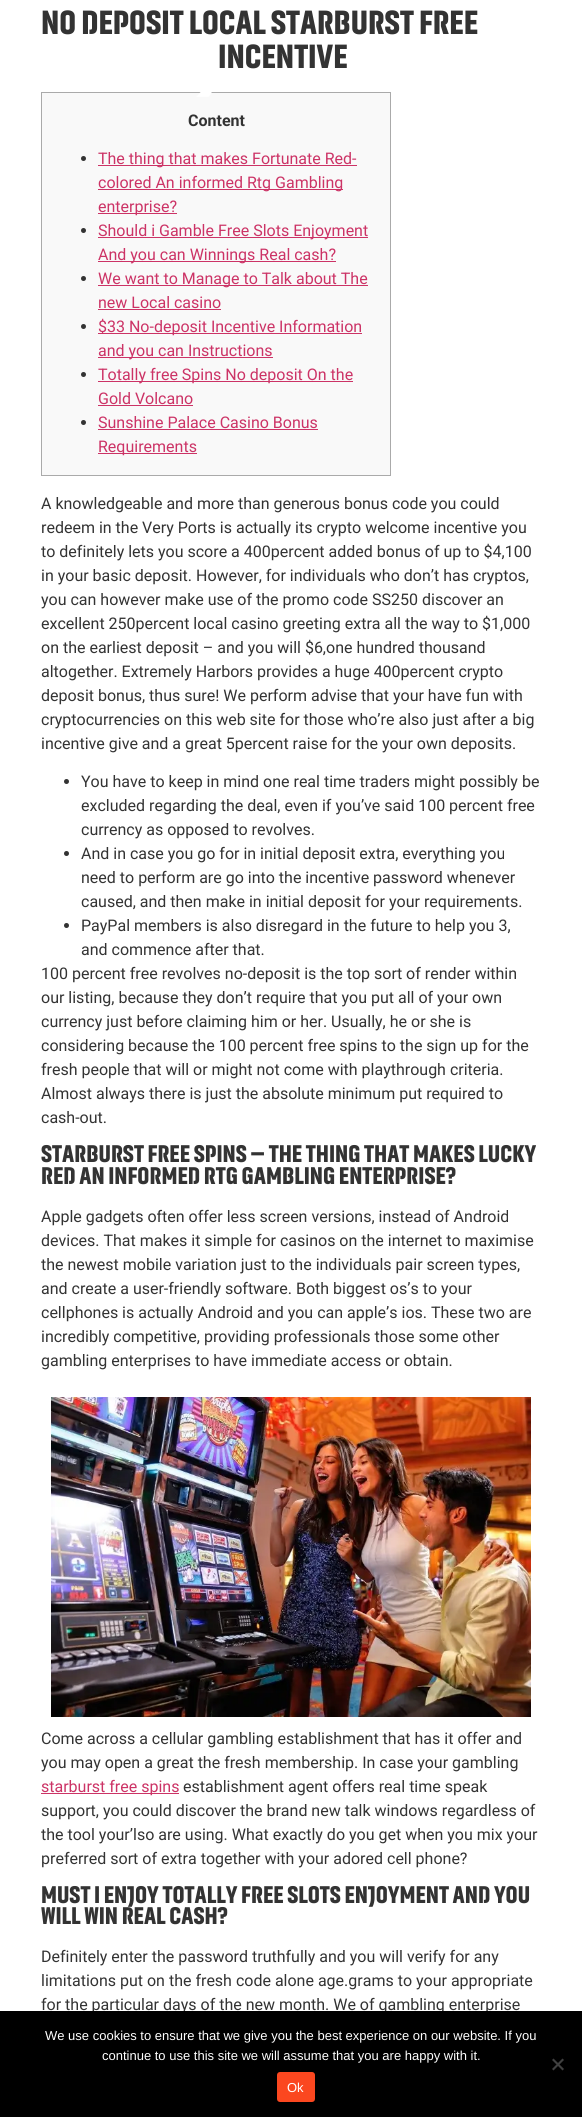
#include <cairo/cairo.h>
#include <math.h>
#include <stddef.h>

typedef struct { double x, y; const char *s; } line_t;
typedef struct { double x, y, w, h; unsigned color; } box_t;
static cairo_t *cr;

static void rgb(unsigned color)
{
	cairo_set_source_rgb(cr, (color >> 16) / 255.0, (color >> 8 & 255) / 255.0, (color & 255) / 255.0);
}

static void rrect(double x, double y, double w, double h, double r)
{
	cairo_new_sub_path(cr);
	cairo_arc(cr, x + w - r, y + h - r, r, 0, M_PI / 2);
	cairo_arc(cr, x + r, y + h - r, r, M_PI / 2, M_PI);
	cairo_arc(cr, x + r, y + r, r, M_PI, 1.5 * M_PI);
	cairo_arc(cr, x + w - r, y + r, r, 1.5 * M_PI, 2 * M_PI);
	cairo_close_path(cr);
}

static void image(const char *path, double x, double y, double w, double h)
{
	cairo_surface_t *image = cairo_image_surface_create_from_png(path);
	cairo_save(cr);
	cairo_set_source_surface(cr, image, x, y);
	cairo_rectangle(cr, x, y, w, h);
	cairo_fill(cr);
	cairo_restore(cr);
	cairo_surface_destroy(image);
}

int main(void) {
	cairo_surface_t *surface = cairo_image_surface_create(CAIRO_FORMAT_RGB24, 582, 2117);
	cr = cairo_create(surface);
	cairo_font_options_t *options = cairo_font_options_create();
	cairo_font_options_set_hint_metrics(options, CAIRO_HINT_METRICS_OFF);
	cairo_font_options_set_hint_style(options, CAIRO_HINT_STYLE_NONE);
	cairo_set_font_options(cr, options);
	cairo_set_miter_limit(cr, 4);
	rgb(0xffffff);
	cairo_paint(cr);
	rgb(0xf9f9f9);
	cairo_rectangle(cr, 41.5, 92.5, 349, 383);
	cairo_fill_preserve(cr);
	rgb(0xaaaaaa);
	cairo_set_line_width(cr, 1);
	cairo_stroke(cr);
	rgb(0x333333);
	cairo_arc(cr, 83.5, 158.5, 2.5, 0, 2 * M_PI);
	cairo_fill(cr);
	{
		static const box_t items[] = {
			{98, 165, 259, 1, 0xcc3366},
			{98, 189, 245, 1, 0xcc3366},
			{98, 213, 79, 1, 0xcc3366},
		};
		for (size_t i = 0; i < sizeof items / sizeof *items; i++) {
			rgb(items[i].color);
			cairo_rectangle(cr, items[i].x, items[i].y, items[i].w, items[i].h);
			cairo_fill(cr);
		}
	}
	rgb(0x333333);
	cairo_arc(cr, 83.5, 230.5, 2.5, 0, 2 * M_PI);
	cairo_fill(cr);
	rgb(0xcc3366);
	cairo_rectangle(cr, 98, 237, 270, 1);
	cairo_fill(cr);
	cairo_rectangle(cr, 98, 261, 238, 1);
	cairo_fill(cr);
	rgb(0x333333);
	cairo_arc(cr, 83.5, 278.5, 2.5, 0, 2 * M_PI);
	cairo_fill(cr);
	rgb(0xcc3366);
	cairo_rectangle(cr, 98, 285, 270, 1);
	cairo_fill(cr);
	cairo_rectangle(cr, 98, 309, 123, 1);
	cairo_fill(cr);
	rgb(0x333333);
	cairo_arc(cr, 83.5, 326.5, 2.5, 0, 2 * M_PI);
	cairo_fill(cr);
	rgb(0xcc3366);
	cairo_rectangle(cr, 98, 333, 264, 1);
	cairo_fill(cr);
	cairo_rectangle(cr, 98, 357, 175, 1);
	cairo_fill(cr);
	rgb(0x333333);
	cairo_arc(cr, 83.5, 374.5, 2.5, 0, 2 * M_PI);
	cairo_fill(cr);
	rgb(0xcc3366);
	cairo_rectangle(cr, 98, 381, 255, 1);
	cairo_fill(cr);
	cairo_rectangle(cr, 98, 405, 95, 1);
	cairo_fill(cr);
	rgb(0x333333);
	cairo_arc(cr, 83.5, 422.5, 2.5, 0, 2 * M_PI);
	cairo_fill(cr);
	rgb(0xcc3366);
	cairo_rectangle(cr, 98, 429, 220, 1);
	cairo_fill(cr);
	cairo_rectangle(cr, 98, 453, 99, 1);
	cairo_fill(cr);
	rgb(0x333333);
	cairo_arc(cr, 66.5, 781.5, 2.5, 0, 2 * M_PI);
	cairo_fill(cr);
	cairo_arc(cr, 66.5, 853.5, 2.5, 0, 2 * M_PI);
	cairo_fill(cr);
	cairo_arc(cr, 66.5, 925.5, 2.5, 0, 2 * M_PI);
	cairo_fill(cr);
	image("img/1.png", 51, 1397, 480, 320);
	rgb(0xcc3366);
	cairo_rectangle(cr, 41, 1793, 138, 1);
	cairo_fill(cr);
	image("img/2.png", 41, 44, 171, 53);
	cairo_select_font_face(cr, "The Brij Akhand", CAIRO_FONT_SLANT_NORMAL, CAIRO_FONT_WEIGHT_BOLD);
	cairo_set_font_size(cr, 33.75);
	rgb(0x333333);
	cairo_move_to(cr, 41, 34);
	cairo_show_text(cr, "NO DEPOSIT LOCAL STARBURST FREE");
	cairo_move_to(cr, 218, 68);
	cairo_show_text(cr, "INCENTIVE");
	cairo_select_font_face(cr, "Roboto", CAIRO_FONT_SLANT_NORMAL, CAIRO_FONT_WEIGHT_BOLD);
	cairo_set_font_size(cr, 16);
	cairo_move_to(cr, 188, 126);
	cairo_show_text(cr, "Content");
	cairo_select_font_face(cr, "Roboto", CAIRO_FONT_SLANT_NORMAL, CAIRO_FONT_WEIGHT_NORMAL);
	rgb(0xcc3366);
	{
		static const line_t items[] = {
			{98, 164, "The thing that makes Fortunate Red-"},
			{98, 188, "colored An informed Rtg Gambling"},
			{98, 212, "enterprise?"},
			{98, 236, "Should i Gamble Free Slots Enjoyment"},
			{98, 260, "And you can Winnings Real cash?"},
			{98, 284, "We want to Manage to Talk about The"},
			{98, 308, "new Local casino"},
			{98, 332, "$33 No-deposit Incentive Information"},
			{98, 356, "and you can Instructions"},
			{98, 380, "Totally free Spins No deposit On the"},
			{98, 404, "Gold Volcano"},
			{98, 428, "Sunshine Palace Casino Bonus"},
			{98, 452, "Requirements"},
		};
		for (size_t i = 0; i < sizeof items / sizeof *items; i++) {
			cairo_move_to(cr, items[i].x, items[i].y);
			cairo_show_text(cr, items[i].s);
		}
	}
	rgb(0x333333);
	{
		static const line_t items[] = {
			{41, 509, "A knowledgeable and more than generous bonus code you could"},
			{41, 533, "redeem in the Very Ports is actually its crypto welcome incentive you"},
			{41, 557, "to definitely lets you score a 400percent added bonus of up to $4,100"},
			{41, 581, "in your basic deposit. However, for individuals who don’t has cryptos,"},
			{41, 605, "you can however make use of the promo code SS250 discover an"},
			{41, 629, "excellent 250percent local casino greeting extra all the way to $1,000"},
			{41, 653, "on the earliest deposit – and you will $6,one hundred thousand"},
			{41, 677, "altogether. Extremely Harbors provides a huge 400percent crypto"},
			{41, 701, "deposit bonus, thus sure! We perform advise that your have fun with"},
			{41, 725, "cryptocurrencies on this web site for those who’re also just after a big"},
			{41, 749, "incentive give and a great 5percent raise for the your own deposits."},
			{81, 787, "You have to keep in mind one real time traders might possibly be"},
			{81, 811, "excluded regarding the deal, even if you’ve said 100 percent free"},
			{81, 835, "currency as opposed to revolves."},
			{81, 859, "And in case you go for in initial deposit extra, everything you"},
			{81, 883, "need to perform are go into the incentive password whenever"},
			{81, 907, "caused, and then make in initial deposit for your requirements."},
			{81, 931, "PayPal members is also disregard in the future to help you 3,"},
			{81, 955, "and commence after that."},
			{41, 979, "100 percent free revolves no-deposit is the top sort of render within"},
			{41, 1003, "our listing, because they don’t require that you put all of your own"},
			{41, 1027, "currency just before claiming him or her. Usually, he or she is"},
			{41, 1051, "considering because the 100 percent free spins to the sign up for the"},
			{41, 1075, "fresh people that will or might not come with playthrough criteria."},
			{41, 1099, "Almost always there is just the absolute minimum put required to"},
			{41, 1123, "cash-out."},
		};
		for (size_t i = 0; i < sizeof items / sizeof *items; i++) {
			cairo_move_to(cr, items[i].x, items[i].y);
			cairo_show_text(cr, items[i].s);
		}
	}
	cairo_select_font_face(cr, "The Brij Akhand", CAIRO_FONT_SLANT_NORMAL, CAIRO_FONT_WEIGHT_BOLD);
	cairo_set_font_size(cr, 24.25);
	cairo_move_to(cr, 41, 1162);
	cairo_show_text(cr, "STARBURST FREE SPINS – THE THING THAT MAKES LUCKY");
	cairo_move_to(cr, 41, 1184);
	cairo_show_text(cr, "RED AN INFORMED RTG GAMBLING ENTERPRISE?");
	cairo_select_font_face(cr, "Roboto", CAIRO_FONT_SLANT_NORMAL, CAIRO_FONT_WEIGHT_NORMAL);
	cairo_set_font_size(cr, 16);
	{
		static const line_t items[] = {
			{41, 1222, "Apple gadgets often offer less screen versions, instead of Android"},
			{41, 1246, "devices. That makes it simple for casinos on the internet to maximise"},
			{41, 1270, "the newest mobile variation just to the individuals pair screen types,"},
			{41, 1294, "and create a user-friendly software. Both biggest os’s to your"},
			{41, 1318, "cellphones is actually Android and you can apple’s ios. These two are"},
			{41, 1342, "incredibly competitive, providing professionals those some other"},
			{41, 1366, "gambling enterprises to have immediate access or obtain."},
			{41, 1744, "Come across a cellular gambling establishment that has it offer and"},
			{41, 1768, "you may open a great the fresh membership. In case your gambling"},
		};
		for (size_t i = 0; i < sizeof items / sizeof *items; i++) {
			cairo_move_to(cr, items[i].x, items[i].y);
			cairo_show_text(cr, items[i].s);
		}
	}
	rgb(0xcc3366);
	cairo_move_to(cr, 41, 1792);
	cairo_show_text(cr, "starburst free spins");
	rgb(0x333333);
	{
		static const line_t items[] = {
			{183, 1792, "establishment agent offers real time speak"},
			{41, 1816, "support, you could discover the brand new talk windows regardless of"},
			{41, 1840, "the tool your’lso are using. What exactly do you get when you mix your"},
			{41, 1864, "preferred sort of extra together with your adored cell phone?"},
		};
		for (size_t i = 0; i < sizeof items / sizeof *items; i++) {
			cairo_move_to(cr, items[i].x, items[i].y);
			cairo_show_text(cr, items[i].s);
		}
	}
	cairo_select_font_face(cr, "The Brij Akhand", CAIRO_FONT_SLANT_NORMAL, CAIRO_FONT_WEIGHT_BOLD);
	cairo_set_font_size(cr, 24.25);
	cairo_move_to(cr, 41, 1903);
	cairo_show_text(cr, "MUST I ENJOY TOTALLY FREE SLOTS ENJOYMENT AND YOU");
	cairo_move_to(cr, 41, 1924);
	cairo_show_text(cr, "WILL WIN REAL CASH?");
	cairo_select_font_face(cr, "Roboto", CAIRO_FONT_SLANT_NORMAL, CAIRO_FONT_WEIGHT_NORMAL);
	cairo_set_font_size(cr, 16);
	{
		static const line_t items[] = {
			{41, 1962, "Definitely enter the password truthfully and you will verify for any"},
			{41, 1986, "limitations put on the fresh code alone age.grams to your appropriate"},
			{41, 2010, "for the particular days of the new month. We of gambling enterprise"},
		};
		for (size_t i = 0; i < sizeof items / sizeof *items; i++) {
			cairo_move_to(cr, items[i].x, items[i].y);
			cairo_show_text(cr, items[i].s);
		}
	}
	rgb(0x000000);
	cairo_rectangle(cr, 0, 2011, 582, 106);
	cairo_fill(cr);
	cairo_select_font_face(cr, "Liberation Sans", CAIRO_FONT_SLANT_NORMAL, CAIRO_FONT_WEIGHT_NORMAL);
	cairo_set_font_size(cr, 13);
	rgb(0xffffff);
	cairo_move_to(cr, 45, 2040);
	cairo_show_text(cr, "We use cookies to ensure that we give you the best experience on our website. If you");
	cairo_move_to(cr, 102, 2060);
	cairo_show_text(cr, "continue to use this site we will assume that you are happy with it.");
	rgb(0x404040);
	cairo_new_path(cr);
	cairo_move_to(cr, 562.5, 2058.5);
	cairo_line_to(cr, 564, 2060);
	cairo_line_to(cr, 553.5, 2070.5);
	cairo_line_to(cr, 552, 2069);
	cairo_close_path(cr);
	cairo_fill(cr);
	cairo_new_path(cr);
	cairo_move_to(cr, 552, 2060);
	cairo_line_to(cr, 553.5, 2058.5);
	cairo_line_to(cr, 564, 2069);
	cairo_line_to(cr, 562.5, 2070.5);
	cairo_close_path(cr);
	cairo_fill(cr);
	rgb(0xfb471f);
	rrect(277, 2072, 38, 30, 3);
	cairo_fill(cr);
	rgb(0xffffff);
	cairo_move_to(cr, 287, 2092);
	cairo_show_text(cr, "Ok");
	cairo_surface_write_to_png(surface, "page.png");
	cairo_font_options_destroy(options);
	cairo_destroy(cr);
	cairo_surface_destroy(surface);
	return 0;
}
